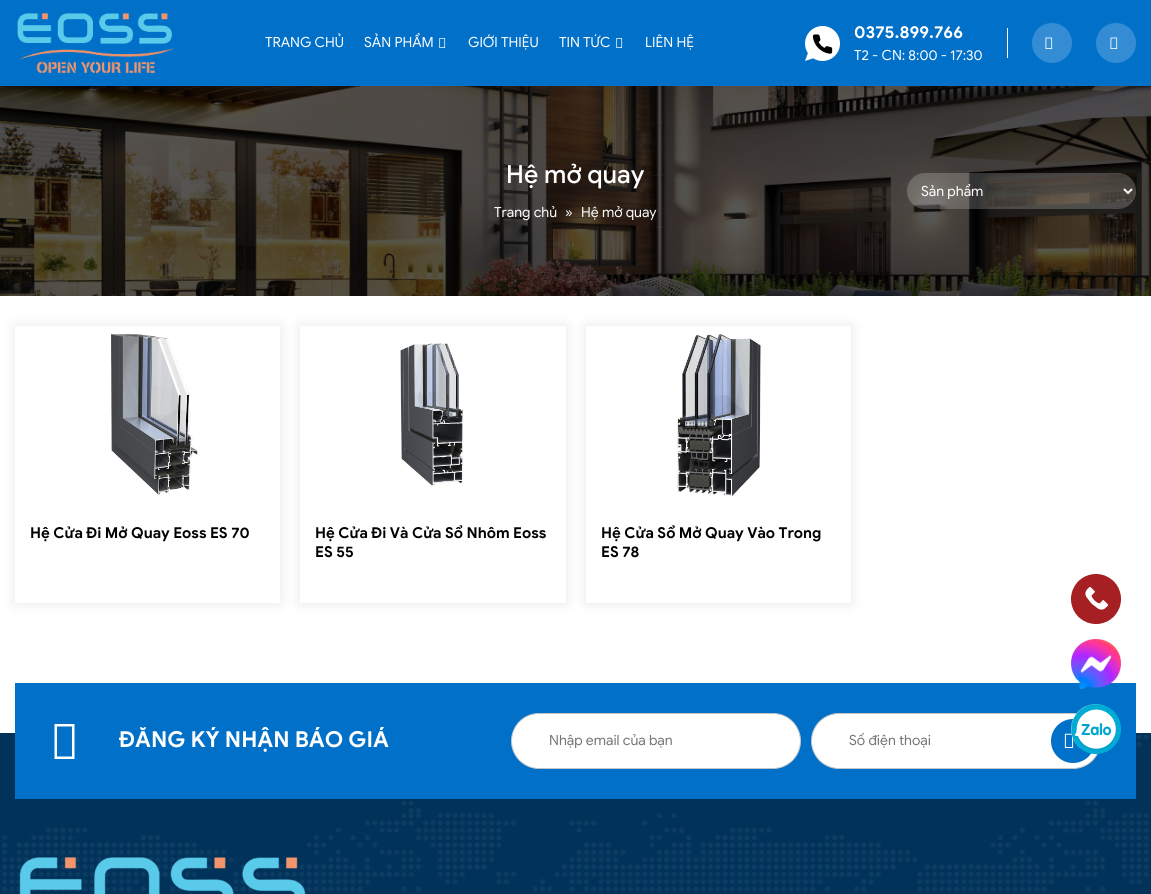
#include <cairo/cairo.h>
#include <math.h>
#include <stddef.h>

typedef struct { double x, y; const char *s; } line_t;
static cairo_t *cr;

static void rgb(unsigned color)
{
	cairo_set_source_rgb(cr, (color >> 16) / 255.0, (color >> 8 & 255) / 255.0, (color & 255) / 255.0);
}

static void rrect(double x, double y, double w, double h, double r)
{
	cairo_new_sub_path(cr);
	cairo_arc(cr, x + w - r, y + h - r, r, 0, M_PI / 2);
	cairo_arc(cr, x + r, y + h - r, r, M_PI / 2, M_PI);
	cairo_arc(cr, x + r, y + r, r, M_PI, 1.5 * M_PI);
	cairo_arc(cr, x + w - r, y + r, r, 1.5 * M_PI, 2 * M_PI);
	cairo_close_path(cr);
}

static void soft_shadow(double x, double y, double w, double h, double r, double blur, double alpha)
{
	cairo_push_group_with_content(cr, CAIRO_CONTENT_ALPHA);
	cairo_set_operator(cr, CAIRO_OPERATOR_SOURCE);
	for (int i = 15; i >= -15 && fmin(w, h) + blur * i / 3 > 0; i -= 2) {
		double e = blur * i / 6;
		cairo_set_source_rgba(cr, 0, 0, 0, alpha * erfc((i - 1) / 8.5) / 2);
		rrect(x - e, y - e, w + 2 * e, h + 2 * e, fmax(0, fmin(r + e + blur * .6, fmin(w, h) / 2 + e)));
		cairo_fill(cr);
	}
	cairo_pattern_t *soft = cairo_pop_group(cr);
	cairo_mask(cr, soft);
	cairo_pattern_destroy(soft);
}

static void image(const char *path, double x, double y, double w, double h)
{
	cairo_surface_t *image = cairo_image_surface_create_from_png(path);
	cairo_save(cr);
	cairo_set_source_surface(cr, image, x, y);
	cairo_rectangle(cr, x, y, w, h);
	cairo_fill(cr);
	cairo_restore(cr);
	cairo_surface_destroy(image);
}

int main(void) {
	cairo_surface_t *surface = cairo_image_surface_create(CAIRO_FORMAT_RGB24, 1151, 894);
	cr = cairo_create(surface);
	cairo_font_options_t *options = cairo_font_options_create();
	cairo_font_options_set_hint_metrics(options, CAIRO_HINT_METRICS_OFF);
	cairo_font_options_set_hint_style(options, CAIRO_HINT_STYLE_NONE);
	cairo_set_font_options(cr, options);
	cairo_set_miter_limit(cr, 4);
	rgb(0xffffff);
	cairo_paint(cr);
	rgb(0x0170c9);
	cairo_rectangle(cr, 0, 0, 1151, 86);
	cairo_fill(cr);
	image("img/1.png", 17, 13, 157, 61);
	image("img/2.png", 439, 38, 7, 10);
	image("img/2.png", 616, 38, 7, 10);
	image("img/3.png", 805, 26, 35, 35);
	rgb(0xffffff);
	cairo_rectangle(cr, 1007, 28, 1, 30);
	cairo_fill(cr);
	rgb(0x348dd4);
	cairo_arc(cr, 1052, 43, 20, 0, 2 * M_PI);
	cairo_fill(cr);
	image("img/4.png", 1045, 37, 8, 12);
	cairo_arc(cr, 1116, 43, 20, 0, 2 * M_PI);
	cairo_fill(cr);
	image("img/4.png", 1110, 37, 8, 12);
	image("img/5.png", 0, 86, 1151, 210);
	cairo_set_source_rgba(cr, 1, 1, 1, 0.2);
	rrect(907, 173, 229, 36, 18);
	cairo_fill(cr);
	cairo_new_path(cr);
	cairo_move_to(cr, 1124, 189);
	cairo_line_to(cr, 1128, 193);
	cairo_line_to(cr, 1132, 189);
	rgb(0xffffff);
	cairo_stroke(cr);
	cairo_save(cr);
	cairo_set_fill_rule(cr, CAIRO_FILL_RULE_EVEN_ODD);
	cairo_new_path(cr);
	cairo_move_to(cr, 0, 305);
	cairo_line_to(cr, 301, 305);
	cairo_line_to(cr, 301, 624);
	cairo_line_to(cr, 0, 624);
	cairo_close_path(cr);
	cairo_move_to(cr, 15, 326);
	cairo_line_to(cr, 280, 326);
	cairo_line_to(cr, 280, 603);
	cairo_line_to(cr, 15, 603);
	cairo_close_path(cr);
	cairo_clip(cr);
	rgb(0x000000);
	soft_shadow(15, 326, 265, 277, 0, 6.5, 0.1);
	cairo_restore(cr);
	image("img/6.png", 111, 334, 87, 161);
	cairo_save(cr);
	cairo_set_fill_rule(cr, CAIRO_FILL_RULE_EVEN_ODD);
	cairo_new_path(cr);
	cairo_move_to(cr, 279, 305);
	cairo_line_to(cr, 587, 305);
	cairo_line_to(cr, 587, 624);
	cairo_line_to(cr, 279, 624);
	cairo_close_path(cr);
	cairo_move_to(cr, 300, 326);
	cairo_line_to(cr, 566, 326);
	cairo_line_to(cr, 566, 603);
	cairo_line_to(cr, 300, 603);
	cairo_close_path(cr);
	cairo_clip(cr);
	rgb(0x000000);
	soft_shadow(300, 326, 266, 277, 0, 6.5, 0.1);
	cairo_restore(cr);
	image("img/7.png", 400, 343, 64, 143);
	cairo_save(cr);
	cairo_set_fill_rule(cr, CAIRO_FILL_RULE_EVEN_ODD);
	cairo_new_path(cr);
	cairo_move_to(cr, 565, 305);
	cairo_line_to(cr, 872, 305);
	cairo_line_to(cr, 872, 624);
	cairo_line_to(cr, 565, 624);
	cairo_close_path(cr);
	cairo_move_to(cr, 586, 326);
	cairo_line_to(cr, 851, 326);
	cairo_line_to(cr, 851, 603);
	cairo_line_to(cr, 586, 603);
	cairo_close_path(cr);
	cairo_clip(cr);
	rgb(0x000000);
	soft_shadow(586, 326, 265, 277, 0, 6.5, 0.1);
	cairo_restore(cr);
	image("img/8.png", 677, 334, 84, 162);
	rgb(0x00325a);
	cairo_rectangle(cr, 0, 733, 1151, 161);
	cairo_fill(cr);
	image("img/10.png", 2, 734, 1147, 158);
	rgb(0x0170c9);
	cairo_rectangle(cr, 15, 683, 1121, 116);
	cairo_fill(cr);
	rgb(0xffffff);
	cairo_new_path(cr);
	cairo_move_to(cr, 54.5, 759);
	cairo_line_to(cr, 54.5, 724);
	cairo_line_to(cr, 74.5, 724);
	cairo_line_to(cr, 74.5, 759);
	cairo_close_path(cr);
	cairo_move_to(cr, 57, 756.5);
	cairo_line_to(cr, 72, 756.5);
	cairo_line_to(cr, 72, 726.5);
	cairo_line_to(cr, 57, 726.5);
	cairo_close_path(cr);
	cairo_fill(cr);
	rrect(511.5, 713.5, 289, 55, 27.5);
	cairo_fill_preserve(cr);
	rgb(0xc4c4c4);
	cairo_set_line_width(cr, 1);
	cairo_stroke(cr);
	rgb(0xffffff);
	rrect(811.5, 713.5, 289, 55, 27.5);
	cairo_fill_preserve(cr);
	rgb(0xc4c4c4);
	cairo_stroke(cr);
	rgb(0x0170c9);
	cairo_arc(cr, 1073, 741, 22, 0, 2 * M_PI);
	cairo_fill(cr);
	image("img/9.png", 1064, 733, 10, 15);
	image("img/11.png", 19, 857, 287, 37);
	image("img/12.png", 1071, 574, 50, 50);
	image("img/13.png", 1071, 639, 50, 50);
	image("img/14.png", 1071, 704, 50, 50);
	cairo_select_font_face(cr, "Google Sans", CAIRO_FONT_SLANT_NORMAL, CAIRO_FONT_WEIGHT_NORMAL);
	cairo_set_font_size(cr, 14);
	rgb(0xffffff);
	{
		static const line_t items[] = {
			{265, 47, "TRANG CHỦ"},
			{364, 47, "SẢN PHẨM"},
			{468, 47, "GIỚI THIỆU"},
			{559, 47, "TIN TỨC"},
			{645, 47, "LIÊN HỆ"},
		};
		for (size_t i = 0; i < sizeof items / sizeof *items; i++) {
			cairo_move_to(cr, items[i].x, items[i].y);
			cairo_show_text(cr, items[i].s);
		}
	}
	cairo_select_font_face(cr, "Google Sans", CAIRO_FONT_SLANT_NORMAL, CAIRO_FONT_WEIGHT_BOLD);
	cairo_set_font_size(cr, 17);
	cairo_move_to(cr, 854, 38);
	cairo_show_text(cr, "0375.899.766");
	cairo_select_font_face(cr, "Google Sans", CAIRO_FONT_SLANT_NORMAL, CAIRO_FONT_WEIGHT_NORMAL);
	cairo_set_font_size(cr, 14);
	cairo_move_to(cr, 854, 60);
	cairo_show_text(cr, "T2 - CN: 8:00 - 17:30");
	cairo_select_font_face(cr, "Google Sans Medium", CAIRO_FONT_SLANT_NORMAL, CAIRO_FONT_WEIGHT_NORMAL);
	cairo_set_font_size(cr, 25);
	cairo_move_to(cr, 506, 183);
	cairo_show_text(cr, "Hệ mở quay");
	cairo_select_font_face(cr, "Google Sans", CAIRO_FONT_SLANT_NORMAL, CAIRO_FONT_WEIGHT_NORMAL);
	cairo_set_font_size(cr, 14);
	{
		static const line_t items[] = {
			{494, 217, "Trang chủ"},
			{565, 217, "»"},
			{581, 217, "Hệ mở quay"},
			{921, 196, "Sản phẩm"},
		};
		for (size_t i = 0; i < sizeof items / sizeof *items; i++) {
			cairo_move_to(cr, items[i].x, items[i].y);
			cairo_show_text(cr, items[i].s);
		}
	}
	cairo_select_font_face(cr, "Google Sans", CAIRO_FONT_SLANT_NORMAL, CAIRO_FONT_WEIGHT_BOLD);
	cairo_set_font_size(cr, 15);
	rgb(0x000000);
	{
		static const line_t items[] = {
			{30, 538, "Hệ Cửa Đi Mở Quay Eoss ES 70"},
			{315, 538, "Hệ Cửa Đi Và Cửa Sổ Nhôm Eoss"},
			{315, 557, "ES 55"},
			{601, 538, "Hệ Cửa Sổ Mở Quay Vào Trong"},
			{601, 557, "ES 78"},
		};
		for (size_t i = 0; i < sizeof items / sizeof *items; i++) {
			cairo_move_to(cr, items[i].x, items[i].y);
			cairo_show_text(cr, items[i].s);
		}
	}
	cairo_set_font_size(cr, 22);
	rgb(0xffffff);
	cairo_move_to(cr, 119, 747);
	cairo_show_text(cr, "ĐĂNG KÝ NHẬN BÁO GIÁ");
	cairo_select_font_face(cr, "Google Sans", CAIRO_FONT_SLANT_NORMAL, CAIRO_FONT_WEIGHT_NORMAL);
	cairo_set_font_size(cr, 14);
	rgb(0x757575);
	cairo_move_to(cr, 549, 745);
	cairo_show_text(cr, "Nhập email của bạn");
	cairo_move_to(cr, 849, 745);
	cairo_show_text(cr, "Số điện thoại");
	cairo_surface_write_to_png(surface, "page.png");
	cairo_font_options_destroy(options);
	cairo_destroy(cr);
	cairo_surface_destroy(surface);
	return 0;
}
